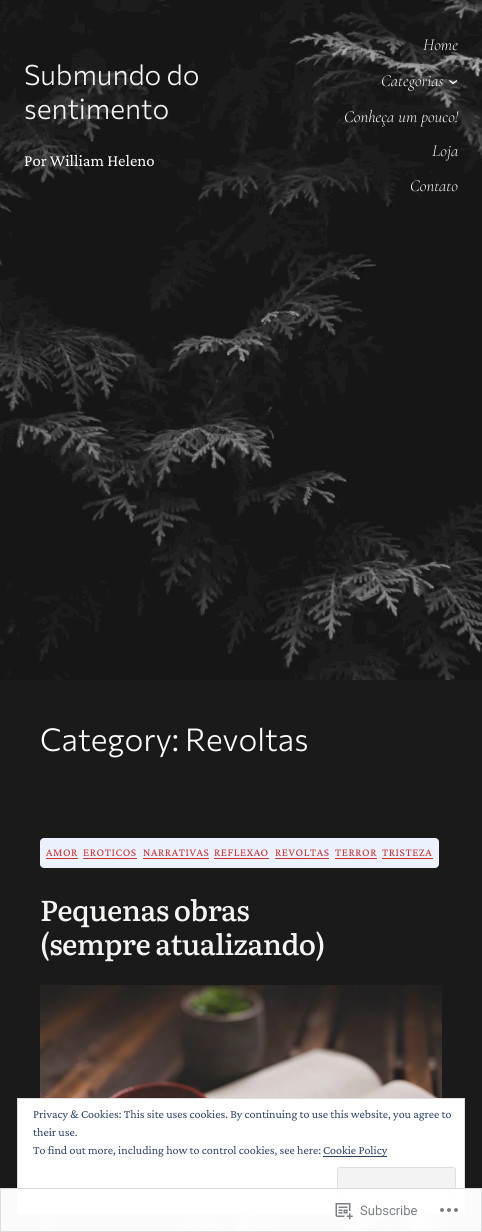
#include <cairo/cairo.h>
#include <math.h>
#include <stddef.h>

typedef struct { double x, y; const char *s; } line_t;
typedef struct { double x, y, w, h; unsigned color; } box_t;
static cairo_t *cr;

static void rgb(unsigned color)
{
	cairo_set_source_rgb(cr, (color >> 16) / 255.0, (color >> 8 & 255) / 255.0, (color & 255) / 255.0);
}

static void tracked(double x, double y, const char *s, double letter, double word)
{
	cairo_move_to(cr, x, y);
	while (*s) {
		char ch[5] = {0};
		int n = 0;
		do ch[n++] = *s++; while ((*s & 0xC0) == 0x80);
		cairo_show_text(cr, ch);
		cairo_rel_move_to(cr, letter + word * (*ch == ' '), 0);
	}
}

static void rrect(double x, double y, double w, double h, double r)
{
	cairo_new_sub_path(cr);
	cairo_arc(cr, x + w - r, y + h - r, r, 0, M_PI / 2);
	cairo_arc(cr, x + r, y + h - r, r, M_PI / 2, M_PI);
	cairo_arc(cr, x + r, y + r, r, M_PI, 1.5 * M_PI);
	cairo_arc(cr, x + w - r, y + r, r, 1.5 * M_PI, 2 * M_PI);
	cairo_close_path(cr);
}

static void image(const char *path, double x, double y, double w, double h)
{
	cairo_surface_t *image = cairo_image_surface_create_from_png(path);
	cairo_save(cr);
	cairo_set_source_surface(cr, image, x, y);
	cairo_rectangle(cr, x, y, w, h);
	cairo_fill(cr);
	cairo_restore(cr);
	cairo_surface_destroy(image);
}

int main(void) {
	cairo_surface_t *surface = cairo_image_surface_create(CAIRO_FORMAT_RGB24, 482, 1232);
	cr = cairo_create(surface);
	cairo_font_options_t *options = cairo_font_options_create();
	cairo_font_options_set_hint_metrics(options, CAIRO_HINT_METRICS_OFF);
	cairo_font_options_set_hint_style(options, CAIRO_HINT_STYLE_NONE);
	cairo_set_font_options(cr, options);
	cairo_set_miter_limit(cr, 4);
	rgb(0x1a1a1a);
	cairo_paint(cr);
	image("img/1.png", 0, 0, 482, 680);
	cairo_new_path(cr);
	cairo_move_to(cr, 449.5, 80.5);
	cairo_line_to(cr, 453, 83.5);
	cairo_line_to(cr, 457, 80.5);
	rgb(0xffffff);
	cairo_set_line_width(cr, 1.3);
	cairo_stroke(cr);
	rgb(0xecf1fe);
	rrect(40, 838, 399, 30, 4);
	cairo_fill(cr);
	{
		static const box_t items[] = {
			{46, 858, 32, 1, 0xcf2e2e},
			{83, 858, 54, 1, 0xcf2e2e},
			{143, 858, 66, 1, 0xcf2e2e},
			{214, 858, 55, 1, 0xcf2e2e},
			{275, 858, 54, 1, 0xcf2e2e},
			{335, 858, 42, 1, 0xcf2e2e},
			{382, 858, 51, 1, 0xcf2e2e},
		};
		for (size_t i = 0; i < sizeof items / sizeof *items; i++) {
			rgb(items[i].color);
			cairo_rectangle(cr, items[i].x, items[i].y, items[i].w, items[i].h);
			cairo_fill(cr);
		}
	}
	image("img/2.png", 40, 985, 402, 247);
	rgb(0xffffff);
	cairo_rectangle(cr, 17.5, 1098.5, 447, 116);
	cairo_fill_preserve(cr);
	rgb(0xdedede);
	cairo_set_line_width(cr, 1);
	cairo_stroke(cr);
	rgb(0x2e4467);
	cairo_rectangle(cr, 323, 1156, 64, 1);
	cairo_fill(cr);
	rgb(0xf3f3f3);
	rrect(337.5, 1167.5, 118, 38, 2.5);
	cairo_fill_preserve(cr);
	rgb(0xdedede);
	cairo_stroke(cr);
	cairo_set_source_rgba(cr, 1, 1, 1, 0.98);
	cairo_rectangle(cr, 0, 1188, 482, 44);
	cairo_fill(cr);
	cairo_rectangle(cr, 0.5, 1188.5, 481, 43);
	cairo_set_source_rgba(cr, 0.863, 0.863, 0.871, 0.98);
	cairo_stroke(cr);
	image("img/3.png", 335, 1203, 18, 17);
	image("img/4.png", 440, 1208, 18, 4);
	cairo_select_font_face(cr, "Commissioner Light", CAIRO_FONT_SLANT_NORMAL, CAIRO_FONT_WEIGHT_NORMAL);
	cairo_set_font_size(cr, 28);
	rgb(0xf4f4f2);
	cairo_move_to(cr, 24, 85);
	cairo_show_text(cr, "Submundo do");
	cairo_move_to(cr, 24, 119);
	cairo_show_text(cr, "sentimento");
	cairo_select_font_face(cr, "Crimson Pro", CAIRO_FONT_SLANT_NORMAL, CAIRO_FONT_WEIGHT_NORMAL);
	cairo_set_font_size(cr, 16.75);
	rgb(0xffffff);
	cairo_move_to(cr, 24, 166);
	cairo_show_text(cr, "Por William Heleno");
	cairo_select_font_face(cr, "Cormorant Light", CAIRO_FONT_SLANT_ITALIC, CAIRO_FONT_WEIGHT_NORMAL);
	{
		static const line_t items[] = {
			{423, 50, "Home"},
			{381, 86, "Categorias"},
			{344, 122, "Conheça um pouco!"},
			{432, 156, "Loja"},
			{410, 191, "Contato"},
		};
		for (size_t i = 0; i < sizeof items / sizeof *items; i++) {
			cairo_move_to(cr, items[i].x, items[i].y);
			cairo_show_text(cr, items[i].s);
		}
	}
	cairo_select_font_face(cr, "Commissioner Light", CAIRO_FONT_SLANT_NORMAL, CAIRO_FONT_WEIGHT_NORMAL);
	cairo_set_font_size(cr, 31.5);
	cairo_move_to(cr, 40, 751);
	cairo_show_text(cr, "Category: Revoltas");
	cairo_select_font_face(cr, "Crimson Pro", CAIRO_FONT_SLANT_NORMAL, CAIRO_FONT_WEIGHT_NORMAL);
	cairo_set_font_size(cr, 11.25);
	rgb(0xcf2e2e);
	{
		static const line_t items[] = {
			{46, 856, "AMOR"},
			{83, 856, "EROTICOS"},
			{143, 856, "NARRATIVAS"},
			{214, 856, "REFLEXAO"},
			{275, 856, "REVOLTAS"},
			{335, 856, "TERROR"},
			{382, 856, "TRISTEZA"},
		};
		for (size_t i = 0; i < sizeof items / sizeof *items; i++) {
			tracked(items[i].x, items[i].y, items[i].s, 0.6, 0);
		}
	}
	cairo_select_font_face(cr, "Literata Medium", CAIRO_FONT_SLANT_NORMAL, CAIRO_FONT_WEIGHT_NORMAL);
	cairo_set_font_size(cr, 28.75);
	rgb(0xf4f4f2);
	tracked(40, 921, "Pequenas obras", -0.6, 0);
	tracked(40, 955, "(sempre atualizando)", -0.6, 0);
	cairo_select_font_face(cr, "Crimson Pro", CAIRO_FONT_SLANT_NORMAL, CAIRO_FONT_WEIGHT_NORMAL);
	cairo_set_font_size(cr, 12);
	rgb(0x2e4467);
	{
		static const line_t items[] = {
			{33, 1118, "Privacy & Cookies: This site uses cookies. By continuing to use this website, you agree to"},
			{33, 1136, "their use."},
			{33, 1154, "To find out more, including how to control cookies, see here:"},
			{323, 1154, "Cookie Policy"},
		};
		for (size_t i = 0; i < sizeof items / sizeof *items; i++) {
			cairo_move_to(cr, items[i].x, items[i].y);
			cairo_show_text(cr, items[i].s);
		}
	}
	cairo_select_font_face(cr, "Roboto", CAIRO_FONT_SLANT_NORMAL, CAIRO_FONT_WEIGHT_NORMAL);
	cairo_set_font_size(cr, 13);
	rgb(0x7b7f84);
	cairo_move_to(cr, 360, 1215);
	cairo_show_text(cr, "Subscribe");
	cairo_surface_write_to_png(surface, "page.png");
	cairo_font_options_destroy(options);
	cairo_destroy(cr);
	cairo_surface_destroy(surface);
	return 0;
}
